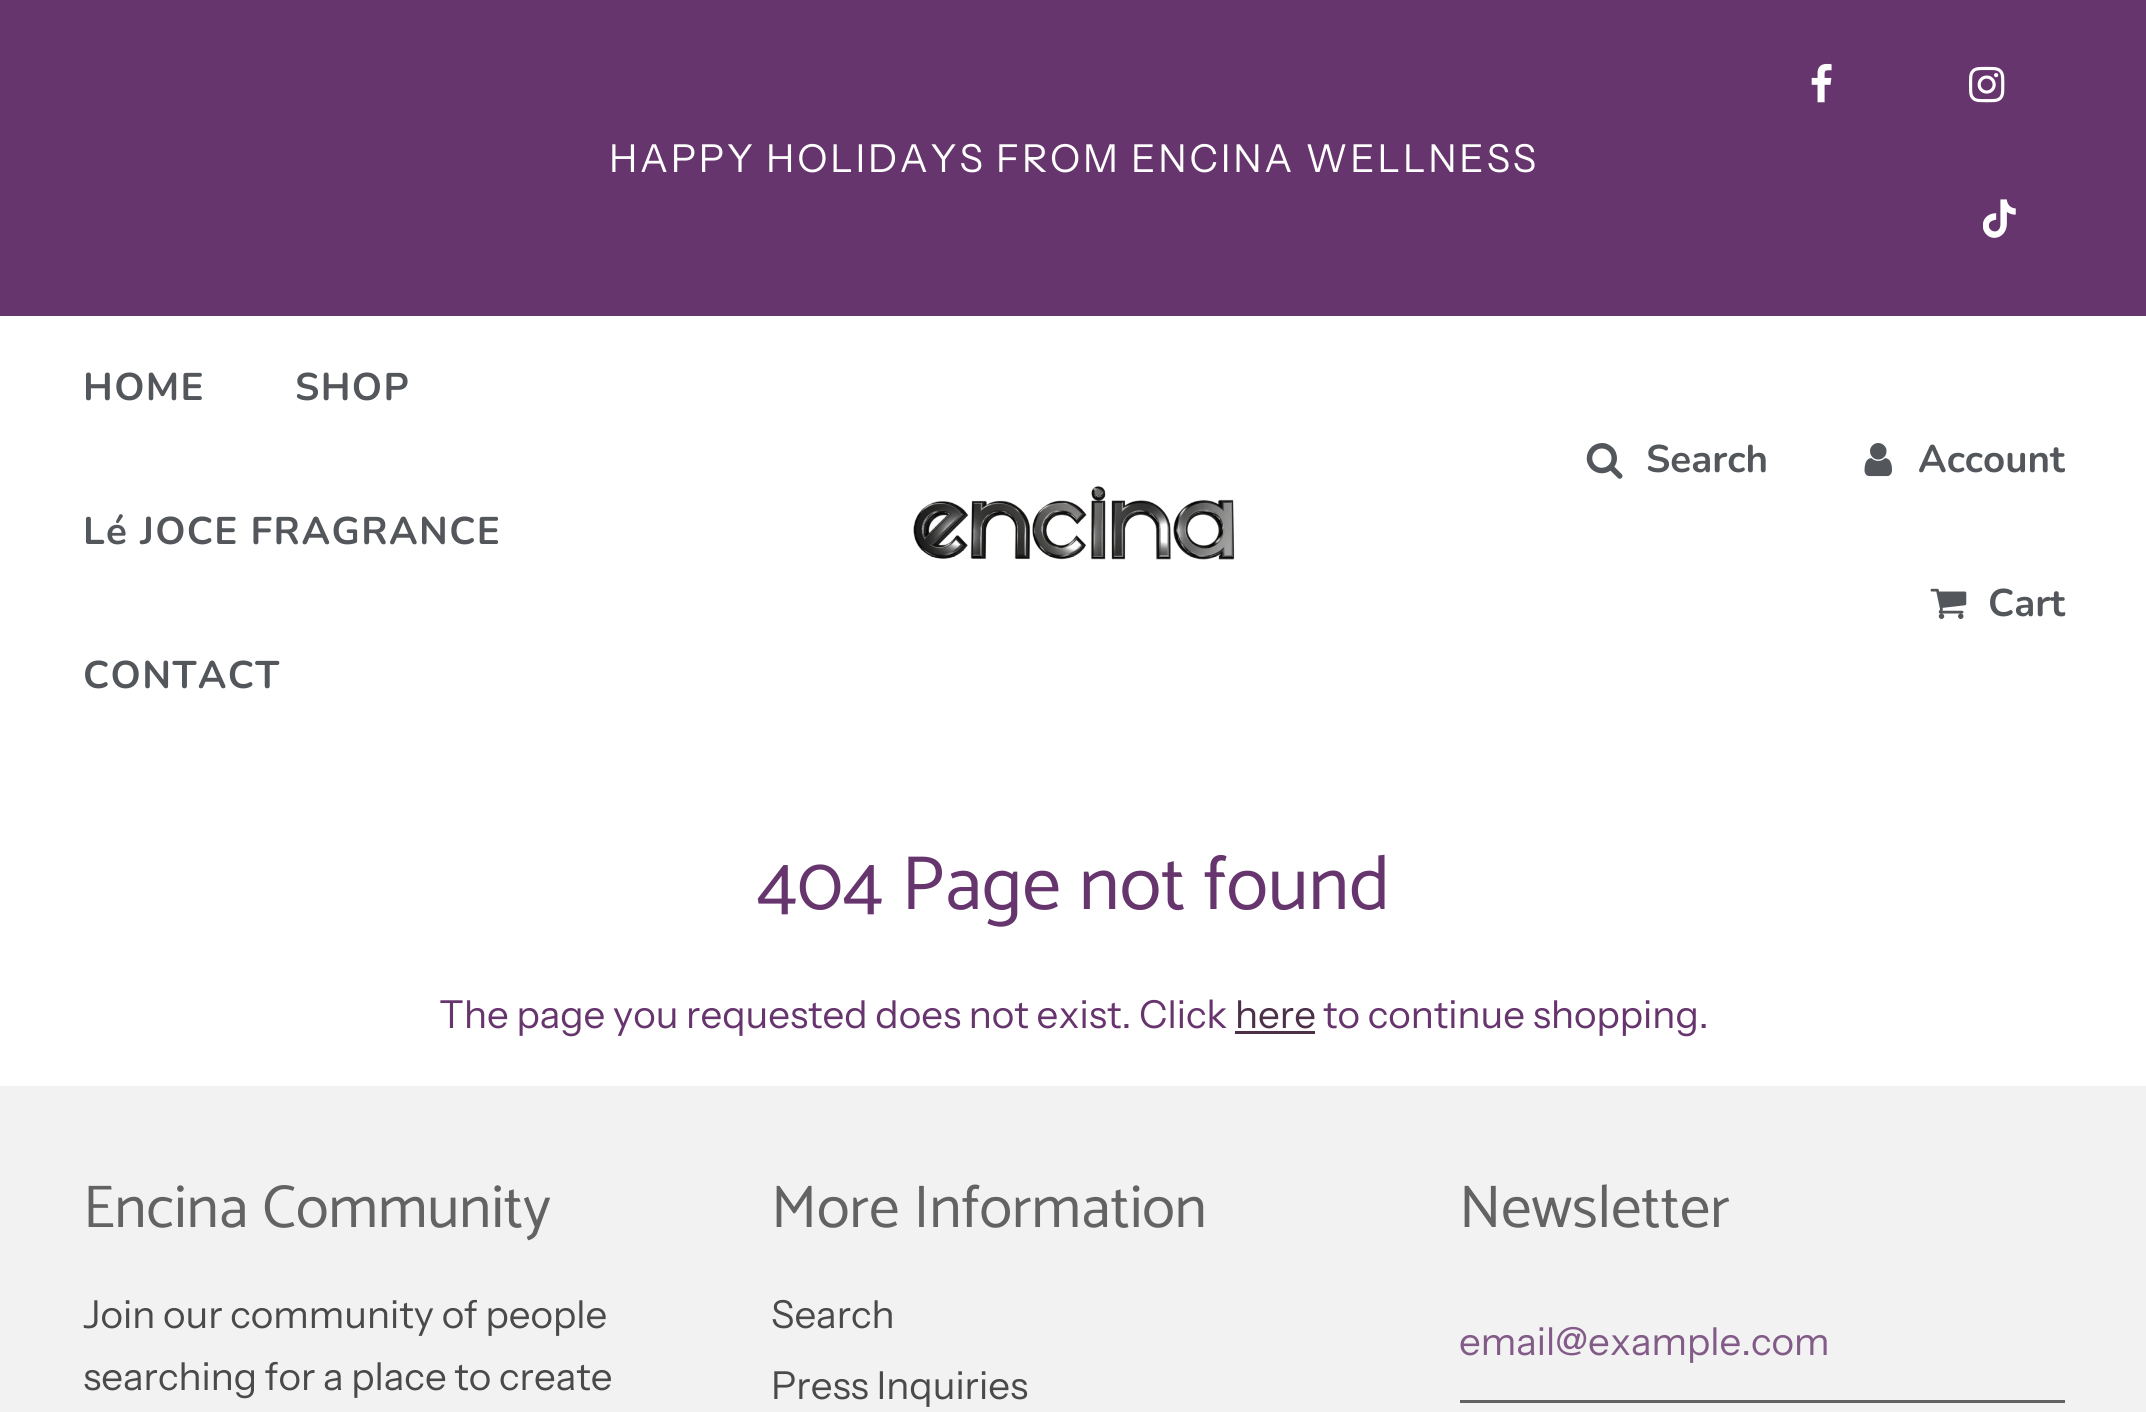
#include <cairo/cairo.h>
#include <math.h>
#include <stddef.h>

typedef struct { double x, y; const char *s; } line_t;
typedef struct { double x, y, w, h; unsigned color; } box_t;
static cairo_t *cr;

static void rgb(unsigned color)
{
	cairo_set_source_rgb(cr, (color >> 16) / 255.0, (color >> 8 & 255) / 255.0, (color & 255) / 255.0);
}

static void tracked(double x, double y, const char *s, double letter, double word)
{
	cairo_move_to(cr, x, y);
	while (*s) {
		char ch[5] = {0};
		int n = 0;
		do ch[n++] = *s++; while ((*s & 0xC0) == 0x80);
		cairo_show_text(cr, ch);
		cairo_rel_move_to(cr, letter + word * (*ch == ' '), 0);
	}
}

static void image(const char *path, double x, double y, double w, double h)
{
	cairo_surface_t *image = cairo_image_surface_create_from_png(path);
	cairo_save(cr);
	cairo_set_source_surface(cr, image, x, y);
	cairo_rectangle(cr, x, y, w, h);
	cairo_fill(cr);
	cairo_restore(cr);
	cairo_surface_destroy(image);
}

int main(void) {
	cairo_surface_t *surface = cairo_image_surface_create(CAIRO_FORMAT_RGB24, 2146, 1412);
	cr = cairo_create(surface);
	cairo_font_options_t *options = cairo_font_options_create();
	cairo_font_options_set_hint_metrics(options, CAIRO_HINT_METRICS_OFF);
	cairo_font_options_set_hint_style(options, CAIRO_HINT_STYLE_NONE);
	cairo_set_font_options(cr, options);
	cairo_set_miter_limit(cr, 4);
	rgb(0xffffff);
	cairo_paint(cr);
	rgb(0x67356d);
	cairo_rectangle(cr, 0, 0, 2146, 316);
	cairo_fill(cr);
	image("img/1.png", 1811, 63, 21, 40);
	image("img/2.png", 1969, 66, 36, 37);
	image("img/3.png", 1983, 199, 33, 39);
	image("img/4.png", 913, 485, 322, 75);
	image("img/5.png", 1586, 443, 37, 36);
	image("img/6.png", 1864, 443, 28, 34);
	image("img/7.png", 1930, 588, 37, 31);
	{
		static const box_t items[] = {
			{1235, 1031, 80, 3, 0x4b3048},
			{0, 1086, 2146, 326, 0xf2f2f2},
			{1460, 1400, 605, 3, 0x636363},
		};
		for (size_t i = 0; i < sizeof items / sizeof *items; i++) {
			rgb(items[i].color);
			cairo_rectangle(cr, items[i].x, items[i].y, items[i].w, items[i].h);
			cairo_fill(cr);
		}
	}
	cairo_select_font_face(cr, "Instrument Sans", CAIRO_FONT_SLANT_NORMAL, CAIRO_FONT_WEIGHT_NORMAL);
	cairo_set_font_size(cr, 38.5);
	rgb(0xffffff);
	tracked(609, 172, "HAPPY HOLIDAYS FROM ENCINA WELLNESS", 2.75, 0);
	cairo_select_font_face(cr, "Nunito", CAIRO_FONT_SLANT_NORMAL, CAIRO_FONT_WEIGHT_BOLD);
	rgb(0x53565a);
	{
		static const line_t items[] = {
			{83, 400, "HOME"},
			{295, 400, "SHOP"},
			{83, 544, "Lé JOCE FRAGRANCE"},
			{83, 688, "CONTACT"},
		};
		for (size_t i = 0; i < sizeof items / sizeof *items; i++) {
			tracked(items[i].x, items[i].y, items[i].s, 1.4, 0);
		}
	}
	{
		static const line_t items[] = {
			{1646, 472, "Search"},
			{1918, 472, "Account"},
			{1988, 616, "Cart"},
		};
		for (size_t i = 0; i < sizeof items / sizeof *items; i++) {
			cairo_move_to(cr, items[i].x, items[i].y);
			cairo_show_text(cr, items[i].s);
		}
	}
	cairo_select_font_face(cr, "Catamaran", CAIRO_FONT_SLANT_NORMAL, CAIRO_FONT_WEIGHT_NORMAL);
	cairo_set_font_size(cr, 77);
	rgb(0x67356d);
	cairo_move_to(cr, 757, 909);
	cairo_show_text(cr, "404 Page not found");
	cairo_select_font_face(cr, "Instrument Sans", CAIRO_FONT_SLANT_NORMAL, CAIRO_FONT_WEIGHT_NORMAL);
	cairo_set_font_size(cr, 38.5);
	cairo_move_to(cr, 439, 1028);
	cairo_show_text(cr, "The page you requested does not exist. Click");
	rgb(0x4b3048);
	cairo_move_to(cr, 1235, 1028);
	cairo_show_text(cr, "here");
	rgb(0x67356d);
	cairo_move_to(cr, 1323, 1028);
	cairo_show_text(cr, "to continue shopping.");
	cairo_select_font_face(cr, "Catamaran", CAIRO_FONT_SLANT_NORMAL, CAIRO_FONT_WEIGHT_NORMAL);
	cairo_set_font_size(cr, 60.5);
	rgb(0x636363);
	cairo_move_to(cr, 83, 1227);
	cairo_show_text(cr, "Encina Community");
	cairo_select_font_face(cr, "Instrument Sans", CAIRO_FONT_SLANT_NORMAL, CAIRO_FONT_WEIGHT_NORMAL);
	cairo_set_font_size(cr, 38.5);
	rgb(0x4a4a4a);
	cairo_move_to(cr, 83, 1328);
	cairo_show_text(cr, "Join our community of people");
	cairo_move_to(cr, 83, 1390);
	cairo_show_text(cr, "searching for a place to create");
	cairo_select_font_face(cr, "Catamaran", CAIRO_FONT_SLANT_NORMAL, CAIRO_FONT_WEIGHT_NORMAL);
	cairo_set_font_size(cr, 60.5);
	rgb(0x636363);
	cairo_move_to(cr, 771, 1227);
	cairo_show_text(cr, "More Information");
	cairo_select_font_face(cr, "Instrument Sans", CAIRO_FONT_SLANT_NORMAL, CAIRO_FONT_WEIGHT_NORMAL);
	cairo_set_font_size(cr, 38.5);
	rgb(0x4a4a4a);
	cairo_move_to(cr, 771, 1328);
	cairo_show_text(cr, "Search");
	cairo_move_to(cr, 771, 1399);
	cairo_show_text(cr, "Press Inquiries");
	cairo_select_font_face(cr, "Catamaran", CAIRO_FONT_SLANT_NORMAL, CAIRO_FONT_WEIGHT_NORMAL);
	cairo_set_font_size(cr, 60.5);
	rgb(0x636363);
	cairo_move_to(cr, 1459, 1227);
	cairo_show_text(cr, "Newsletter");
	cairo_select_font_face(cr, "Instrument Sans", CAIRO_FONT_SLANT_NORMAL, CAIRO_FONT_WEIGHT_NORMAL);
	cairo_set_font_size(cr, 38.5);
	rgb(0x835b88);
	cairo_move_to(cr, 1459, 1355);
	cairo_show_text(cr, "email@example.com");
	cairo_surface_write_to_png(surface, "page.png");
	cairo_font_options_destroy(options);
	cairo_destroy(cr);
	cairo_surface_destroy(surface);
	return 0;
}
